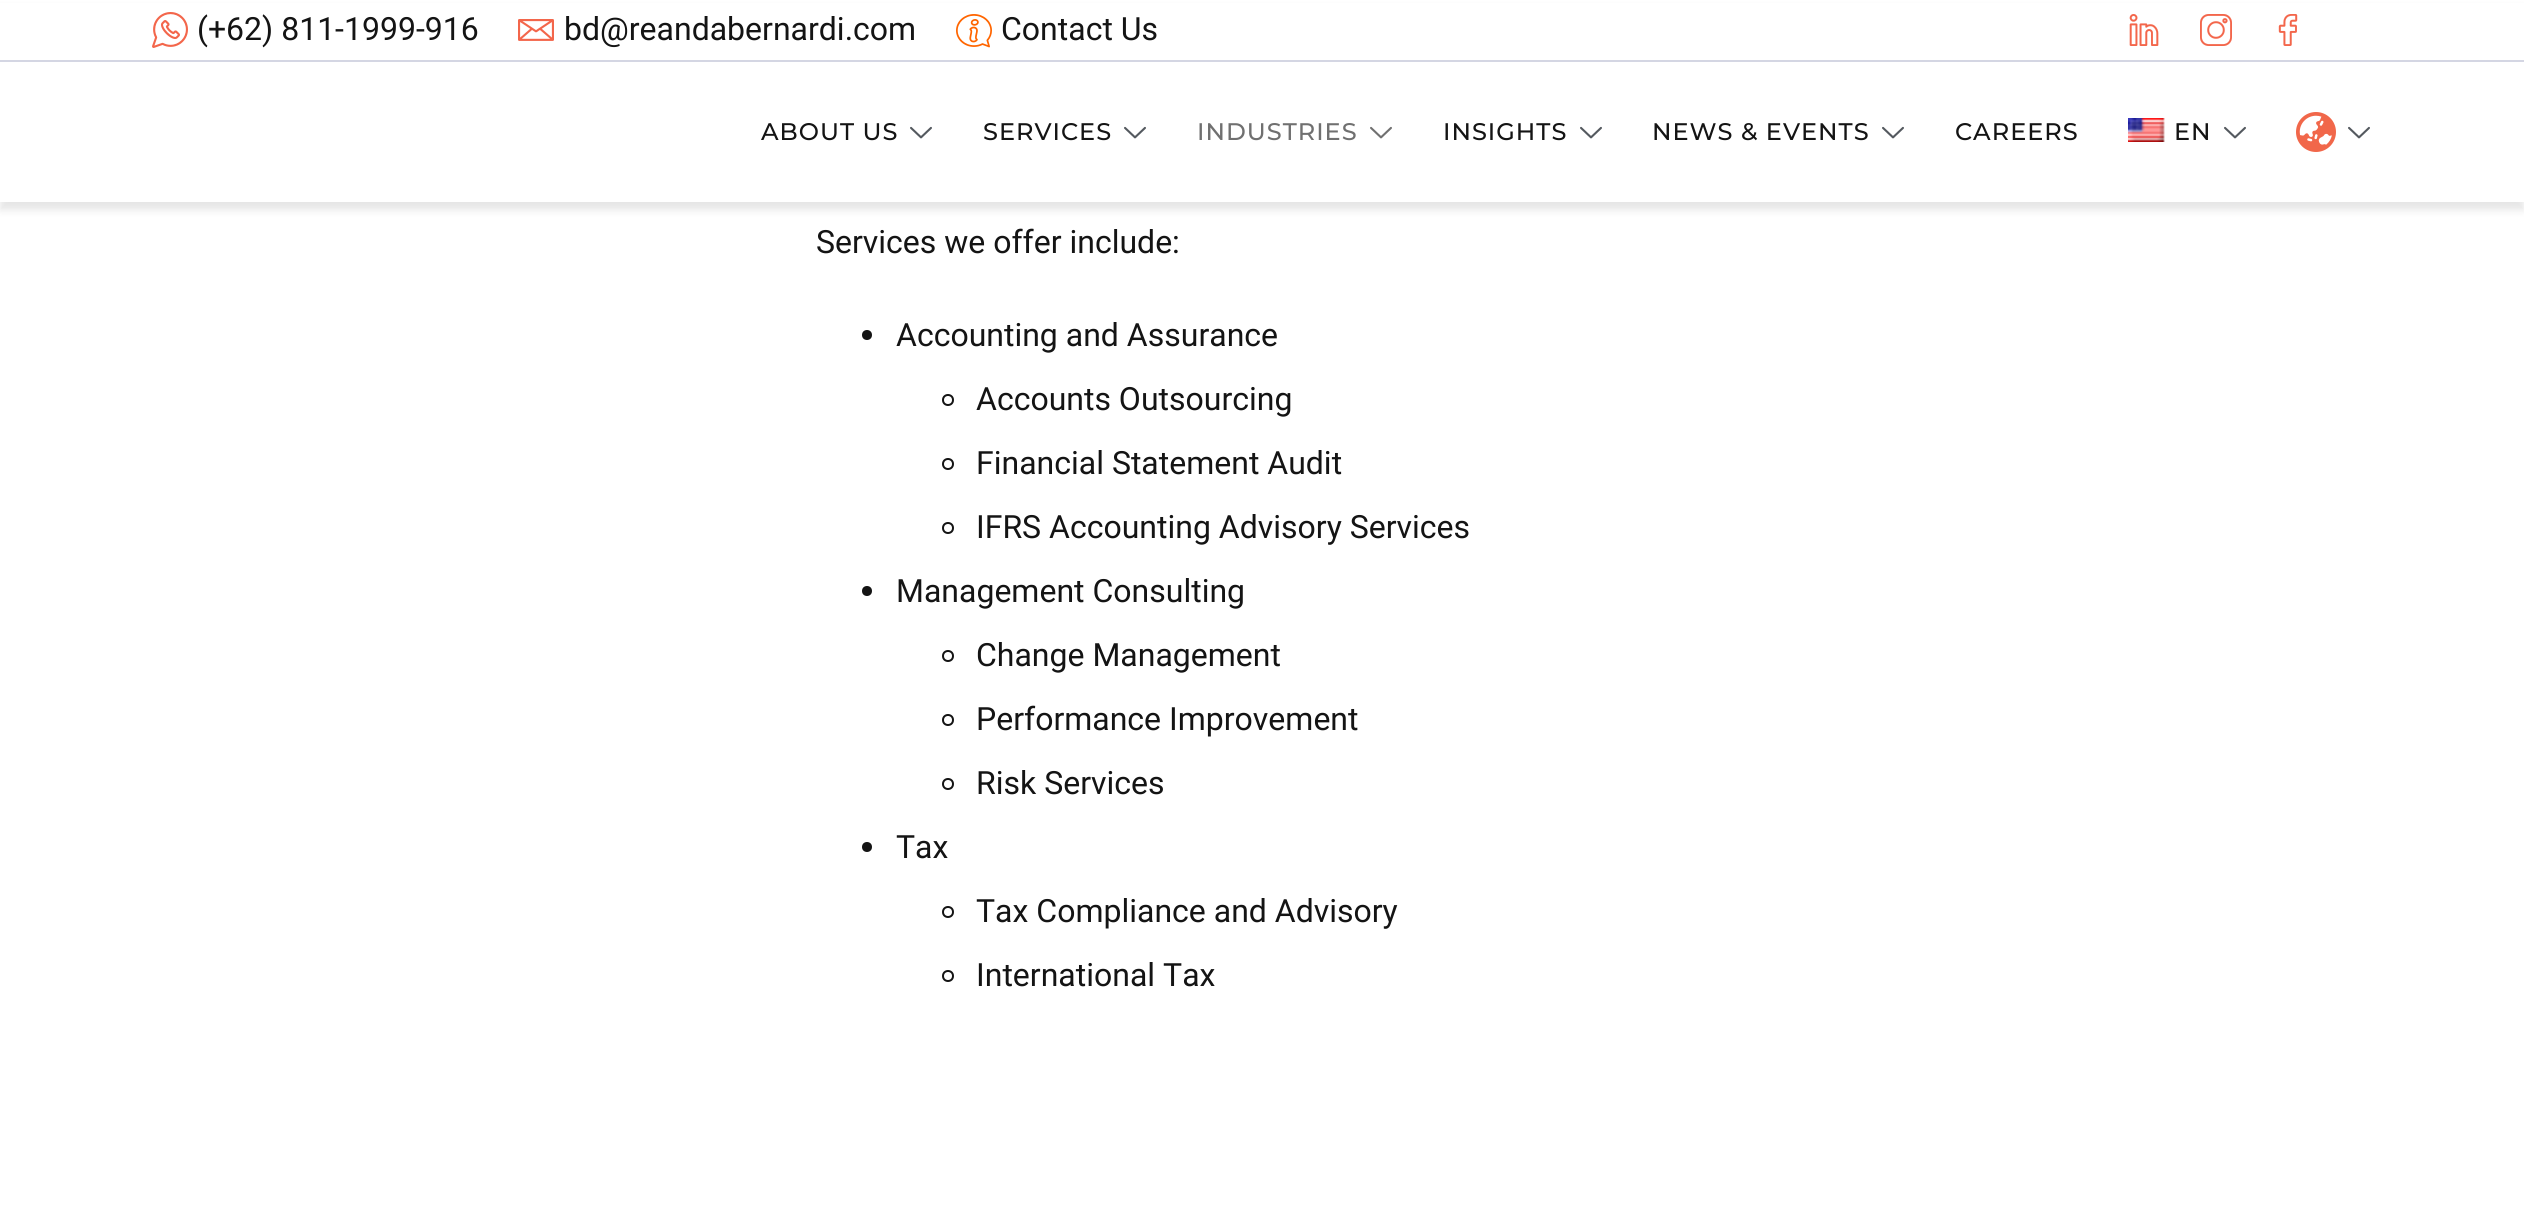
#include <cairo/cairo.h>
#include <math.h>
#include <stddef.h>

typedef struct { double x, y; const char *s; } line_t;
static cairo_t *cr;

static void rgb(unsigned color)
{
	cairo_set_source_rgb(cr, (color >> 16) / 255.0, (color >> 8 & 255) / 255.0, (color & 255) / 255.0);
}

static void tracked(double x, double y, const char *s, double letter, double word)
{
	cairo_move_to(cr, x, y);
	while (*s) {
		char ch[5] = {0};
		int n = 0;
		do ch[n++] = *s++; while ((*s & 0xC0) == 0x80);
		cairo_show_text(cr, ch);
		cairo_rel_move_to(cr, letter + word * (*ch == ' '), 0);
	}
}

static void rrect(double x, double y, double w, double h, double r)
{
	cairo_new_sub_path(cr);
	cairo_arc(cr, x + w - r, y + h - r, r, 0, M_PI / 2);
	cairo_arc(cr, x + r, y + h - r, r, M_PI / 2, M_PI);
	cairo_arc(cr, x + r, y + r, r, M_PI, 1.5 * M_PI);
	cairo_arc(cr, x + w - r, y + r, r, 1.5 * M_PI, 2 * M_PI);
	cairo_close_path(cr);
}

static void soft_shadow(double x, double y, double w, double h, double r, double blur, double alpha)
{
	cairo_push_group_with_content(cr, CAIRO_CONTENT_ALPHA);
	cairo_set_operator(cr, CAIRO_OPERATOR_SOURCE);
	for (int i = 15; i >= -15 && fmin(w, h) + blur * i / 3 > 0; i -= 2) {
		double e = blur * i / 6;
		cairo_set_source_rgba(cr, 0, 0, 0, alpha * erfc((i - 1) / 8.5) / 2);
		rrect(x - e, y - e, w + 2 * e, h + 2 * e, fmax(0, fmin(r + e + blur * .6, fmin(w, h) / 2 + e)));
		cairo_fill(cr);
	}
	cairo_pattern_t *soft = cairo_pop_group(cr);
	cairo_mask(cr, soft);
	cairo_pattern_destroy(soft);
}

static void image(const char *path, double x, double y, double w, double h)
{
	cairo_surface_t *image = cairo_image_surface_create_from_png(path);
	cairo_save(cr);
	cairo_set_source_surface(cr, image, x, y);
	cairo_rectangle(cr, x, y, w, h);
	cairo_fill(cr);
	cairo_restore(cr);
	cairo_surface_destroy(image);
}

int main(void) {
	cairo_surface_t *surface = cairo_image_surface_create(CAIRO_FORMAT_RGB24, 2524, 1206);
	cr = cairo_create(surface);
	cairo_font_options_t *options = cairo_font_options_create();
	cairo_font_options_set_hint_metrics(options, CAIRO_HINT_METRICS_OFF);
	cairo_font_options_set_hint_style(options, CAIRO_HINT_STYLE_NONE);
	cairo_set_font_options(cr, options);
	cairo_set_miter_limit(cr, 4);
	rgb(0xffffff);
	cairo_paint(cr);
	rgb(0x000000);
	soft_shadow(0, 8, 2524, 202, 0, 4, 0.1);
	rgb(0xffffff);
	cairo_rectangle(cr, 0, 3, 2524, 199);
	cairo_fill(cr);
	rgb(0xd4d6e3);
	cairo_rectangle(cr, 0, 60, 2524, 2);
	cairo_fill(cr);
	image("img/1.png", 152, 12, 36, 36);
	image("img/2.png", 518, 19, 36, 22);
	image("img/3.png", 956, 14, 36, 34);
	image("img/4.png", 2129, 14, 30, 32);
	image("img/5.png", 2200, 14, 32, 32);
	image("img/6.png", 2278, 14, 20, 32);
	image("img/7.png", 910, 126, 22, 13);
	image("img/7.png", 1124, 126, 22, 13);
	image("img/8.png", 1370, 126, 22, 13);
	image("img/7.png", 1580, 126, 22, 13);
	image("img/7.png", 1882, 126, 22, 13);
	image("img/9.png", 2128, 118, 37, 24);
	image("img/7.png", 2224, 126, 22, 13);
	image("img/10.png", 2296, 112, 40, 40);
	image("img/7.png", 2348, 126, 22, 13);
	rgb(0x141414);
	cairo_arc(cr, 867, 335, 5, 0, 2 * M_PI);
	cairo_fill(cr);
	cairo_arc(cr, 948, 400, 5, 0, 2 * M_PI);
	cairo_stroke(cr);
	cairo_arc(cr, 948, 464, 5, 0, 2 * M_PI);
	cairo_stroke(cr);
	cairo_arc(cr, 948, 528, 5, 0, 2 * M_PI);
	cairo_stroke(cr);
	cairo_arc(cr, 867, 591, 5, 0, 2 * M_PI);
	cairo_fill(cr);
	cairo_arc(cr, 948, 656, 5, 0, 2 * M_PI);
	cairo_stroke(cr);
	cairo_arc(cr, 948, 720, 5, 0, 2 * M_PI);
	cairo_stroke(cr);
	cairo_arc(cr, 948, 784, 5, 0, 2 * M_PI);
	cairo_stroke(cr);
	cairo_arc(cr, 867, 847, 5, 0, 2 * M_PI);
	cairo_fill(cr);
	cairo_arc(cr, 948, 912, 5, 0, 2 * M_PI);
	cairo_stroke(cr);
	cairo_arc(cr, 948, 976, 5, 0, 2 * M_PI);
	cairo_stroke(cr);
	cairo_select_font_face(cr, "Roboto", CAIRO_FONT_SLANT_NORMAL, CAIRO_FONT_WEIGHT_NORMAL);
	cairo_set_font_size(cr, 32);
	{
		static const line_t items[] = {
			{197, 40, "(+62) 811-1999-916"},
			{564, 40, "bd@reandabernardi.com"},
			{1001, 40, "Contact Us"},
		};
		for (size_t i = 0; i < sizeof items / sizeof *items; i++) {
			cairo_move_to(cr, items[i].x, items[i].y);
			cairo_show_text(cr, items[i].s);
		}
	}
	cairo_select_font_face(cr, "Montserrat Medium", CAIRO_FONT_SLANT_NORMAL, CAIRO_FONT_WEIGHT_NORMAL);
	cairo_set_font_size(cr, 24);
	tracked(761, 140, "ABOUT US", 1, 0);
	tracked(983, 140, "SERVICES", 1, 0);
	rgb(0x707070);
	tracked(1197, 140, "INDUSTRIES", 1, 0);
	rgb(0x141414);
	{
		static const line_t items[] = {
			{1443, 140, "INSIGHTS"},
			{1652, 140, "NEWS & EVENTS"},
			{1955, 140, "CAREERS"},
			{2174, 140, "EN"},
		};
		for (size_t i = 0; i < sizeof items / sizeof *items; i++) {
			tracked(items[i].x, items[i].y, items[i].s, 1, 0);
		}
	}
	cairo_select_font_face(cr, "Roboto", CAIRO_FONT_SLANT_NORMAL, CAIRO_FONT_WEIGHT_NORMAL);
	cairo_set_font_size(cr, 32);
	{
		static const line_t items[] = {
			{816, 253, "Services we offer include:"},
			{896, 346, "Accounting and Assurance"},
			{976, 410, "Accounts Outsourcing"},
			{976, 474, "Financial Statement Audit"},
			{976, 538, "IFRS Accounting Advisory Services"},
			{896, 602, "Management Consulting"},
			{976, 666, "Change Management"},
			{976, 730, "Performance Improvement"},
			{976, 794, "Risk Services"},
			{896, 858, "Tax"},
			{976, 922, "Tax Compliance and Advisory"},
			{976, 986, "International Tax"},
		};
		for (size_t i = 0; i < sizeof items / sizeof *items; i++) {
			cairo_move_to(cr, items[i].x, items[i].y);
			cairo_show_text(cr, items[i].s);
		}
	}
	cairo_surface_write_to_png(surface, "page.png");
	cairo_font_options_destroy(options);
	cairo_destroy(cr);
	cairo_surface_destroy(surface);
	return 0;
}
